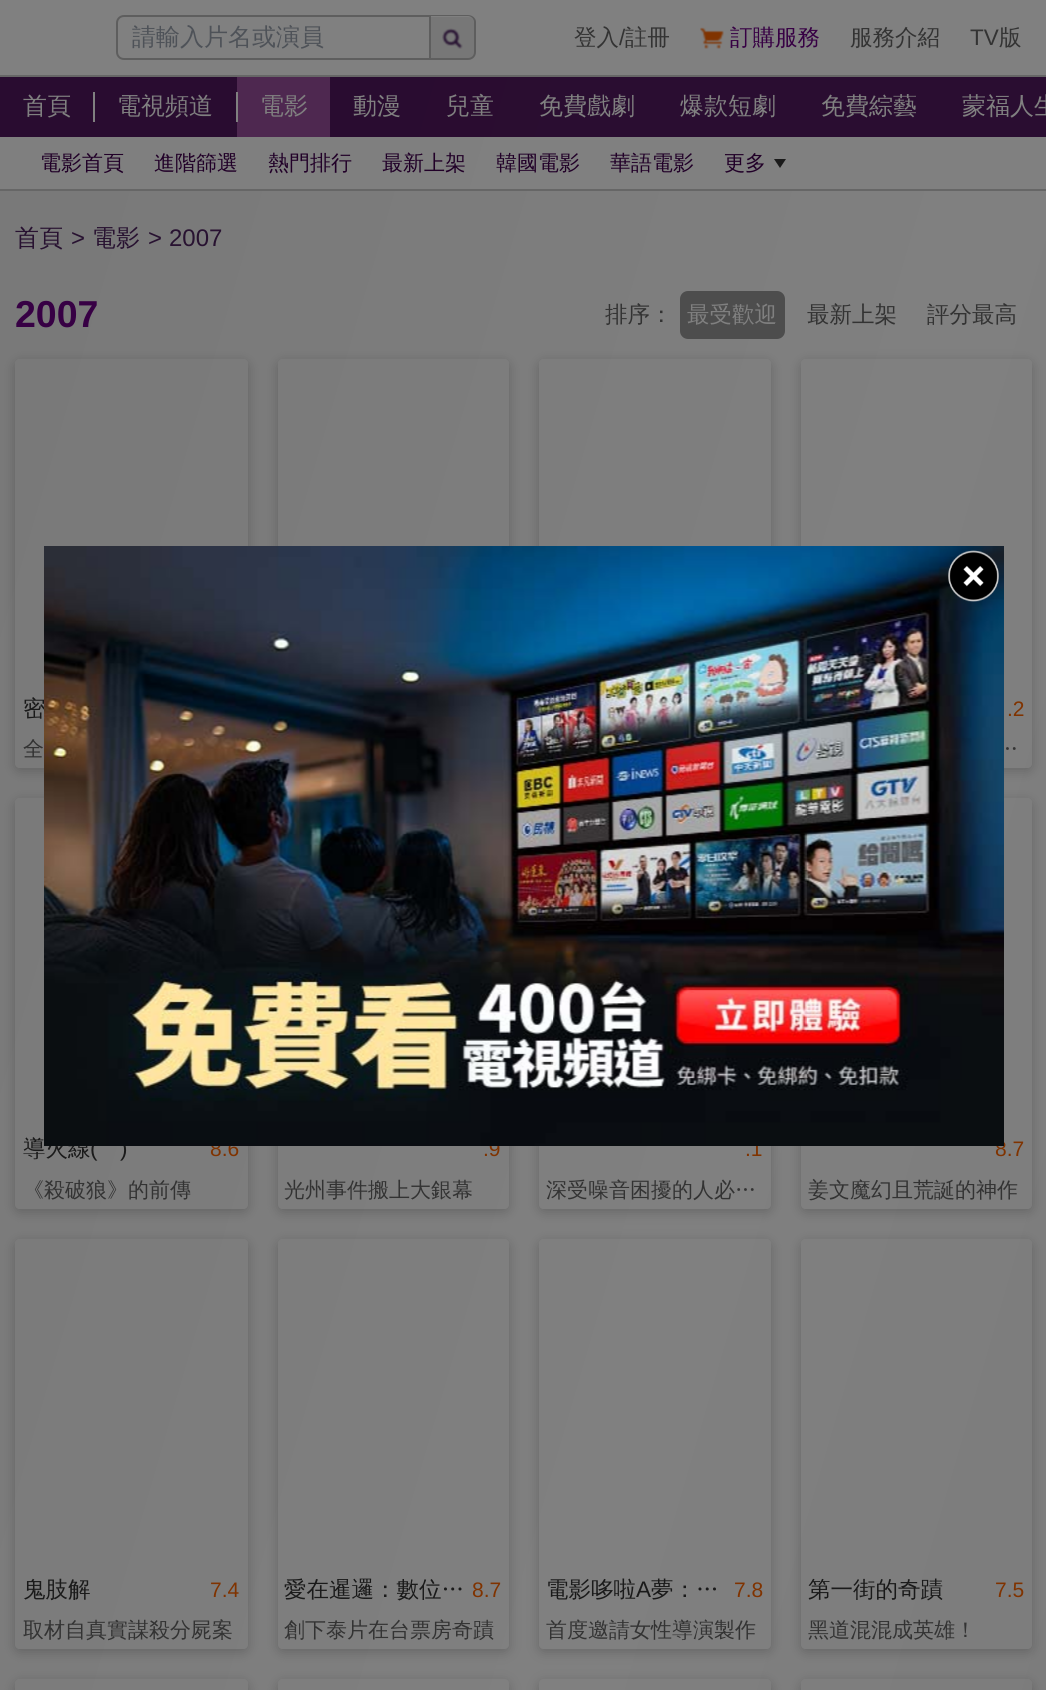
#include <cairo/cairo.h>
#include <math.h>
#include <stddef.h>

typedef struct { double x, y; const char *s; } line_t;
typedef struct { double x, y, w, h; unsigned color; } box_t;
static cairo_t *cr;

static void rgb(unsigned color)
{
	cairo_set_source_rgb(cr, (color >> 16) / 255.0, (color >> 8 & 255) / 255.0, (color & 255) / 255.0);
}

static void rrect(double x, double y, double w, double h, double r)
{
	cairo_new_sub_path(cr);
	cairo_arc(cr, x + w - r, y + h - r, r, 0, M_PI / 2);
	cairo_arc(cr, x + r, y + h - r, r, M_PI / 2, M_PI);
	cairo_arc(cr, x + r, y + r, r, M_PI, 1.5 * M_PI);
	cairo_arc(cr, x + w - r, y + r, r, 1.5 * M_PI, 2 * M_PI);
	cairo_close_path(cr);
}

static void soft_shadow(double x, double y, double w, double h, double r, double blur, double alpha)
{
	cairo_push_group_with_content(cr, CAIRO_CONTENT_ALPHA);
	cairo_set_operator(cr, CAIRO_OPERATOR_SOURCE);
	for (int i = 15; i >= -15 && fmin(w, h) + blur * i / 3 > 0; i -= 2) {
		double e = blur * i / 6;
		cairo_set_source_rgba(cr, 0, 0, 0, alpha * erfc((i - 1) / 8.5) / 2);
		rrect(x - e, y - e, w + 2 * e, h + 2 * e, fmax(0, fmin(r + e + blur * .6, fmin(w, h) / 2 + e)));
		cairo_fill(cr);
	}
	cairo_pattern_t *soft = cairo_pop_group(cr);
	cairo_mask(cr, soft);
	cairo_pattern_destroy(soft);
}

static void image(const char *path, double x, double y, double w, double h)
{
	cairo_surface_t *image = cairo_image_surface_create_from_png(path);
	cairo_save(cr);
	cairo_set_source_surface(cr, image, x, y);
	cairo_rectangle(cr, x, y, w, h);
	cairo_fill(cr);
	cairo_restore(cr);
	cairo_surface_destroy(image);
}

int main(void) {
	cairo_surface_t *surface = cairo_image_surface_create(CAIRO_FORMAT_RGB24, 1046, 1690);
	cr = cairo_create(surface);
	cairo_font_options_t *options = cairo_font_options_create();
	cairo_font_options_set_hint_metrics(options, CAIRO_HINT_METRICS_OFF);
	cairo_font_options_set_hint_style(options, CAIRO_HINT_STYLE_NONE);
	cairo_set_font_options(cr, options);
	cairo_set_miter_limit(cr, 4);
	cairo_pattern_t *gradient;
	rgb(0xffffff);
	cairo_paint(cr);
	gradient = cairo_pattern_create_linear(-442, 1524, 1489, 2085);
	cairo_pattern_add_color_stop_rgba(gradient, 0, 0.471, 0.471, 0.471, 1);
	cairo_pattern_add_color_stop_rgba(gradient, 0.5, 0.502, 0.502, 0.502, 1);
	cairo_pattern_add_color_stop_rgba(gradient, 1, 0.471, 0.471, 0.471, 1);
	cairo_set_source(cr, gradient);
	cairo_pattern_destroy(gradient);
	cairo_rectangle(cr, 0, 191, 1046, 1499);
	cairo_fill(cr);
	gradient = cairo_pattern_create_linear(-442, 1524, 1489, 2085);
	cairo_pattern_add_color_stop_rgba(gradient, 0, 0.161, 0.047, 0.188, 1);
	cairo_pattern_add_color_stop_rgba(gradient, 0.5, 0.165, 0.051, 0.192, 1);
	cairo_pattern_add_color_stop_rgba(gradient, 1, 0.161, 0.047, 0.188, 1);
	cairo_set_source(cr, gradient);
	cairo_pattern_destroy(gradient);
	cairo_rectangle(cr, 0, 77, 1046, 60);
	cairo_fill(cr);
	gradient = cairo_pattern_create_linear(-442, 1524, 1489, 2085);
	cairo_pattern_add_color_stop_rgba(gradient, 0, 0.498, 0.498, 0.498, 1);
	cairo_pattern_add_color_stop_rgba(gradient, 0.5, 0.502, 0.502, 0.502, 1);
	cairo_pattern_add_color_stop_rgba(gradient, 1, 0.498, 0.498, 0.498, 1);
	cairo_set_source(cr, gradient);
	cairo_pattern_destroy(gradient);
	cairo_rectangle(cr, 0, 137, 1046, 52);
	cairo_fill(cr);
	rgb(0x808080);
	cairo_rectangle(cr, 0, 0, 1046, 75);
	cairo_fill(cr);
	cairo_new_path(cr);
	cairo_move_to(cr, 124, 16);
	cairo_line_to(cr, 430, 16);
	cairo_line_to(cr, 430, 59);
	cairo_line_to(cr, 124, 59);
	cairo_curve_to(cr, 120, 59, 117, 56, 117, 52);
	cairo_line_to(cr, 117, 23);
	cairo_curve_to(cr, 117, 19, 120, 16, 124, 16);
	cairo_close_path(cr);
	rgb(0x5e5e5e);
	cairo_stroke(cr);
	rgb(0x777777);
	cairo_new_path(cr);
	cairo_move_to(cr, 431, 17);
	cairo_line_to(cr, 468, 17);
	cairo_curve_to(cr, 471.5, 17, 474, 19.5, 474, 23);
	cairo_line_to(cr, 474, 53);
	cairo_curve_to(cr, 474, 56.5, 471.5, 59, 468, 59);
	cairo_line_to(cr, 431, 59);
	cairo_close_path(cr);
	cairo_fill(cr);
	rgb(0x5e5e5e);
	cairo_set_fill_rule(cr, CAIRO_FILL_RULE_EVEN_ODD);
	cairo_new_path(cr);
	cairo_move_to(cr, 430, 15);
	cairo_line_to(cr, 468, 15);
	cairo_curve_to(cr, 472, 15, 476, 18, 476, 22);
	cairo_line_to(cr, 476, 52);
	cairo_curve_to(cr, 476, 57, 472, 60, 468, 60);
	cairo_line_to(cr, 430, 60);
	cairo_close_path(cr);
	cairo_move_to(cr, 430, 16);
	cairo_line_to(cr, 468, 16);
	cairo_curve_to(cr, 471, 16, 474, 19, 474, 22);
	cairo_line_to(cr, 474, 52);
	cairo_curve_to(cr, 474, 56, 471, 58, 468, 58);
	cairo_line_to(cr, 430, 58);
	cairo_close_path(cr);
	cairo_fill(cr);
	image("img/1.png", 442, 28, 21, 21);
	image("img/2.png", 700, 27, 24, 22);
	{
		static const box_t items[] = {
			{0, 75, 1046, 2, 0x666666},
			{93, 92, 2, 30, 0x808080},
			{237, 77, 93, 60, 0x4e2850},
			{236, 92, 2, 30, 0x808080},
		};
		for (size_t i = 0; i < sizeof items / sizeof *items; i++) {
			rgb(items[i].color);
			cairo_rectangle(cr, items[i].x, items[i].y, items[i].w, items[i].h);
			cairo_fill(cr);
		}
	}
	rgb(0x1a1a1a);
	cairo_set_fill_rule(cr, CAIRO_FILL_RULE_WINDING);
	cairo_new_path(cr);
	cairo_move_to(cr, 774, 159);
	cairo_line_to(cr, 786, 159);
	cairo_line_to(cr, 780, 168);
	cairo_close_path(cr);
	cairo_fill(cr);
	rgb(0x666666);
	cairo_rectangle(cr, 0, 189, 1046, 2);
	cairo_fill(cr);
	rgb(0x4d4d4d);
	rrect(680, 291, 105, 48, 8);
	cairo_fill(cr);
	cairo_save(cr);
	cairo_set_fill_rule(cr, CAIRO_FILL_RULE_EVEN_ODD);
	cairo_new_path(cr);
	cairo_move_to(cr, 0, 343);
	cairo_line_to(cr, 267, 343);
	cairo_line_to(cr, 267, 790);
	cairo_line_to(cr, 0, 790);
	cairo_close_path(cr);
	cairo_move_to(cr, 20, 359);
	cairo_line_to(cr, 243, 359);
	cairo_curve_to(cr, 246, 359, 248, 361, 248, 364);
	cairo_line_to(cr, 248, 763);
	cairo_curve_to(cr, 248, 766, 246, 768, 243, 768);
	cairo_line_to(cr, 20, 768);
	cairo_curve_to(cr, 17, 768, 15, 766, 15, 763);
	cairo_line_to(cr, 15, 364);
	cairo_curve_to(cr, 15, 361, 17, 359, 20, 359);
	cairo_close_path(cr);
	cairo_clip(cr);
	rgb(0x000000);
	soft_shadow(15, 362, 233, 409, 5, 6, 0.2);
	cairo_restore(cr);
	cairo_save(cr);
	cairo_set_fill_rule(cr, CAIRO_FILL_RULE_EVEN_ODD);
	cairo_new_path(cr);
	cairo_move_to(cr, 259, 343);
	cairo_line_to(cr, 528, 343);
	cairo_line_to(cr, 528, 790);
	cairo_line_to(cr, 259, 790);
	cairo_close_path(cr);
	cairo_move_to(cr, 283, 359);
	cairo_line_to(cr, 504, 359);
	cairo_curve_to(cr, 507, 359, 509, 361, 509, 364);
	cairo_line_to(cr, 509, 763);
	cairo_curve_to(cr, 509, 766, 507, 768, 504, 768);
	cairo_line_to(cr, 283, 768);
	cairo_curve_to(cr, 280, 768, 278, 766, 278, 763);
	cairo_line_to(cr, 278, 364);
	cairo_curve_to(cr, 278, 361, 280, 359, 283, 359);
	cairo_close_path(cr);
	cairo_clip(cr);
	rgb(0x000000);
	soft_shadow(278, 362, 231, 409, 5, 6, 0.2);
	cairo_restore(cr);
	cairo_save(cr);
	cairo_set_fill_rule(cr, CAIRO_FILL_RULE_EVEN_ODD);
	cairo_new_path(cr);
	cairo_move_to(cr, 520, 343);
	cairo_line_to(cr, 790, 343);
	cairo_line_to(cr, 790, 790);
	cairo_line_to(cr, 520, 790);
	cairo_close_path(cr);
	cairo_move_to(cr, 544, 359);
	cairo_line_to(cr, 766, 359);
	cairo_curve_to(cr, 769, 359, 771, 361, 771, 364);
	cairo_line_to(cr, 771, 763);
	cairo_curve_to(cr, 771, 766, 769, 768, 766, 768);
	cairo_line_to(cr, 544, 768);
	cairo_curve_to(cr, 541, 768, 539, 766, 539, 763);
	cairo_line_to(cr, 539, 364);
	cairo_curve_to(cr, 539, 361, 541, 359, 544, 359);
	cairo_close_path(cr);
	cairo_clip(cr);
	rgb(0x000000);
	soft_shadow(539, 362, 232, 409, 5, 6, 0.2);
	cairo_restore(cr);
	cairo_save(cr);
	cairo_set_fill_rule(cr, CAIRO_FILL_RULE_EVEN_ODD);
	cairo_new_path(cr);
	cairo_move_to(cr, 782, 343);
	cairo_line_to(cr, 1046, 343);
	cairo_line_to(cr, 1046, 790);
	cairo_line_to(cr, 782, 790);
	cairo_close_path(cr);
	cairo_move_to(cr, 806, 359);
	cairo_line_to(cr, 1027, 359);
	cairo_curve_to(cr, 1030, 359, 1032, 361, 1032, 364);
	cairo_line_to(cr, 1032, 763);
	cairo_curve_to(cr, 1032, 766, 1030, 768, 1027, 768);
	cairo_line_to(cr, 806, 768);
	cairo_curve_to(cr, 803, 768, 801, 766, 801, 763);
	cairo_line_to(cr, 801, 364);
	cairo_curve_to(cr, 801, 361, 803, 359, 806, 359);
	cairo_close_path(cr);
	cairo_clip(cr);
	rgb(0x000000);
	soft_shadow(801, 362, 231, 409, 5, 6, 0.2);
	cairo_restore(cr);
	cairo_save(cr);
	cairo_set_fill_rule(cr, CAIRO_FILL_RULE_EVEN_ODD);
	cairo_new_path(cr);
	cairo_move_to(cr, 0, 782);
	cairo_line_to(cr, 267, 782);
	cairo_line_to(cr, 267, 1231);
	cairo_line_to(cr, 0, 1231);
	cairo_close_path(cr);
	cairo_move_to(cr, 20, 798);
	cairo_line_to(cr, 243, 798);
	cairo_curve_to(cr, 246, 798, 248, 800, 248, 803);
	cairo_line_to(cr, 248, 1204);
	cairo_curve_to(cr, 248, 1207, 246, 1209, 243, 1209);
	cairo_line_to(cr, 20, 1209);
	cairo_curve_to(cr, 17, 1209, 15, 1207, 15, 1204);
	cairo_line_to(cr, 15, 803);
	cairo_curve_to(cr, 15, 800, 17, 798, 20, 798);
	cairo_close_path(cr);
	cairo_clip(cr);
	rgb(0x000000);
	soft_shadow(15, 801, 233, 411, 5, 6, 0.2);
	cairo_restore(cr);
	cairo_save(cr);
	cairo_set_fill_rule(cr, CAIRO_FILL_RULE_EVEN_ODD);
	cairo_new_path(cr);
	cairo_move_to(cr, 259, 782);
	cairo_line_to(cr, 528, 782);
	cairo_line_to(cr, 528, 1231);
	cairo_line_to(cr, 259, 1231);
	cairo_close_path(cr);
	cairo_move_to(cr, 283, 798);
	cairo_line_to(cr, 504, 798);
	cairo_curve_to(cr, 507, 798, 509, 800, 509, 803);
	cairo_line_to(cr, 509, 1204);
	cairo_curve_to(cr, 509, 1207, 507, 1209, 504, 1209);
	cairo_line_to(cr, 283, 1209);
	cairo_curve_to(cr, 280, 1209, 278, 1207, 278, 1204);
	cairo_line_to(cr, 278, 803);
	cairo_curve_to(cr, 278, 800, 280, 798, 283, 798);
	cairo_close_path(cr);
	cairo_clip(cr);
	rgb(0x000000);
	soft_shadow(278, 801, 231, 411, 5, 6, 0.2);
	cairo_restore(cr);
	cairo_save(cr);
	cairo_set_fill_rule(cr, CAIRO_FILL_RULE_EVEN_ODD);
	cairo_new_path(cr);
	cairo_move_to(cr, 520, 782);
	cairo_line_to(cr, 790, 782);
	cairo_line_to(cr, 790, 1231);
	cairo_line_to(cr, 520, 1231);
	cairo_close_path(cr);
	cairo_move_to(cr, 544, 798);
	cairo_line_to(cr, 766, 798);
	cairo_curve_to(cr, 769, 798, 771, 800, 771, 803);
	cairo_line_to(cr, 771, 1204);
	cairo_curve_to(cr, 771, 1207, 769, 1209, 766, 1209);
	cairo_line_to(cr, 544, 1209);
	cairo_curve_to(cr, 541, 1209, 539, 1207, 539, 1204);
	cairo_line_to(cr, 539, 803);
	cairo_curve_to(cr, 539, 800, 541, 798, 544, 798);
	cairo_close_path(cr);
	cairo_clip(cr);
	rgb(0x000000);
	soft_shadow(539, 801, 232, 411, 5, 6, 0.2);
	cairo_restore(cr);
	cairo_save(cr);
	cairo_set_fill_rule(cr, CAIRO_FILL_RULE_EVEN_ODD);
	cairo_new_path(cr);
	cairo_move_to(cr, 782, 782);
	cairo_line_to(cr, 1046, 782);
	cairo_line_to(cr, 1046, 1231);
	cairo_line_to(cr, 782, 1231);
	cairo_close_path(cr);
	cairo_move_to(cr, 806, 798);
	cairo_line_to(cr, 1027, 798);
	cairo_curve_to(cr, 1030, 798, 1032, 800, 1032, 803);
	cairo_line_to(cr, 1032, 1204);
	cairo_curve_to(cr, 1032, 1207, 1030, 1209, 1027, 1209);
	cairo_line_to(cr, 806, 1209);
	cairo_curve_to(cr, 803, 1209, 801, 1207, 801, 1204);
	cairo_line_to(cr, 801, 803);
	cairo_curve_to(cr, 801, 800, 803, 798, 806, 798);
	cairo_close_path(cr);
	cairo_clip(cr);
	rgb(0x000000);
	soft_shadow(801, 801, 231, 411, 5, 6, 0.2);
	cairo_restore(cr);
	cairo_save(cr);
	cairo_set_fill_rule(cr, CAIRO_FILL_RULE_EVEN_ODD);
	cairo_new_path(cr);
	cairo_move_to(cr, 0, 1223);
	cairo_line_to(cr, 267, 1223);
	cairo_line_to(cr, 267, 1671);
	cairo_line_to(cr, 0, 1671);
	cairo_close_path(cr);
	cairo_move_to(cr, 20, 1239);
	cairo_line_to(cr, 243, 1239);
	cairo_curve_to(cr, 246, 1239, 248, 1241, 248, 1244);
	cairo_line_to(cr, 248, 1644);
	cairo_curve_to(cr, 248, 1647, 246, 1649, 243, 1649);
	cairo_line_to(cr, 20, 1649);
	cairo_curve_to(cr, 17, 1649, 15, 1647, 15, 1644);
	cairo_line_to(cr, 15, 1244);
	cairo_curve_to(cr, 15, 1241, 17, 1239, 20, 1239);
	cairo_close_path(cr);
	cairo_clip(cr);
	rgb(0x000000);
	soft_shadow(15, 1242, 233, 410, 5, 6, 0.2);
	cairo_restore(cr);
	cairo_save(cr);
	cairo_set_fill_rule(cr, CAIRO_FILL_RULE_EVEN_ODD);
	cairo_new_path(cr);
	cairo_move_to(cr, 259, 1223);
	cairo_line_to(cr, 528, 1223);
	cairo_line_to(cr, 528, 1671);
	cairo_line_to(cr, 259, 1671);
	cairo_close_path(cr);
	cairo_move_to(cr, 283, 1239);
	cairo_line_to(cr, 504, 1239);
	cairo_curve_to(cr, 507, 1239, 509, 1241, 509, 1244);
	cairo_line_to(cr, 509, 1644);
	cairo_curve_to(cr, 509, 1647, 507, 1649, 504, 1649);
	cairo_line_to(cr, 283, 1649);
	cairo_curve_to(cr, 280, 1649, 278, 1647, 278, 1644);
	cairo_line_to(cr, 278, 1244);
	cairo_curve_to(cr, 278, 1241, 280, 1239, 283, 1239);
	cairo_close_path(cr);
	cairo_clip(cr);
	rgb(0x000000);
	soft_shadow(278, 1242, 231, 410, 5, 6, 0.2);
	cairo_restore(cr);
	cairo_save(cr);
	cairo_set_fill_rule(cr, CAIRO_FILL_RULE_EVEN_ODD);
	cairo_new_path(cr);
	cairo_move_to(cr, 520, 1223);
	cairo_line_to(cr, 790, 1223);
	cairo_line_to(cr, 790, 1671);
	cairo_line_to(cr, 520, 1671);
	cairo_close_path(cr);
	cairo_move_to(cr, 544, 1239);
	cairo_line_to(cr, 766, 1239);
	cairo_curve_to(cr, 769, 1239, 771, 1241, 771, 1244);
	cairo_line_to(cr, 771, 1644);
	cairo_curve_to(cr, 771, 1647, 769, 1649, 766, 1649);
	cairo_line_to(cr, 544, 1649);
	cairo_curve_to(cr, 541, 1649, 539, 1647, 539, 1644);
	cairo_line_to(cr, 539, 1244);
	cairo_curve_to(cr, 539, 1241, 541, 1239, 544, 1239);
	cairo_close_path(cr);
	cairo_clip(cr);
	rgb(0x000000);
	soft_shadow(539, 1242, 232, 410, 5, 6, 0.2);
	cairo_restore(cr);
	cairo_save(cr);
	cairo_set_fill_rule(cr, CAIRO_FILL_RULE_EVEN_ODD);
	cairo_new_path(cr);
	cairo_move_to(cr, 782, 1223);
	cairo_line_to(cr, 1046, 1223);
	cairo_line_to(cr, 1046, 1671);
	cairo_line_to(cr, 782, 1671);
	cairo_close_path(cr);
	cairo_move_to(cr, 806, 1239);
	cairo_line_to(cr, 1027, 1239);
	cairo_curve_to(cr, 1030, 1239, 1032, 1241, 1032, 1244);
	cairo_line_to(cr, 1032, 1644);
	cairo_curve_to(cr, 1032, 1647, 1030, 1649, 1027, 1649);
	cairo_line_to(cr, 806, 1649);
	cairo_curve_to(cr, 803, 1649, 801, 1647, 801, 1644);
	cairo_line_to(cr, 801, 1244);
	cairo_curve_to(cr, 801, 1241, 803, 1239, 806, 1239);
	cairo_close_path(cr);
	cairo_clip(cr);
	rgb(0x000000);
	soft_shadow(801, 1242, 231, 410, 5, 6, 0.2);
	cairo_restore(cr);
	cairo_save(cr);
	cairo_set_fill_rule(cr, CAIRO_FILL_RULE_EVEN_ODD);
	cairo_new_path(cr);
	cairo_move_to(cr, 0, 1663);
	cairo_line_to(cr, 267, 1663);
	cairo_line_to(cr, 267, 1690);
	cairo_line_to(cr, 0, 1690);
	cairo_close_path(cr);
	cairo_move_to(cr, 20, 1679);
	cairo_line_to(cr, 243, 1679);
	cairo_curve_to(cr, 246, 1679, 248, 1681, 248, 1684);
	cairo_line_to(cr, 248, 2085);
	cairo_curve_to(cr, 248, 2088, 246, 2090, 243, 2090);
	cairo_line_to(cr, 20, 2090);
	cairo_curve_to(cr, 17, 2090, 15, 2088, 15, 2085);
	cairo_line_to(cr, 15, 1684);
	cairo_curve_to(cr, 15, 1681, 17, 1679, 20, 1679);
	cairo_close_path(cr);
	cairo_clip(cr);
	rgb(0x000000);
	soft_shadow(15, 1682, 233, 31, 5, 6, 0.2);
	cairo_restore(cr);
	cairo_save(cr);
	cairo_set_fill_rule(cr, CAIRO_FILL_RULE_EVEN_ODD);
	cairo_new_path(cr);
	cairo_move_to(cr, 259, 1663);
	cairo_line_to(cr, 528, 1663);
	cairo_line_to(cr, 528, 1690);
	cairo_line_to(cr, 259, 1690);
	cairo_close_path(cr);
	cairo_move_to(cr, 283, 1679);
	cairo_line_to(cr, 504, 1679);
	cairo_curve_to(cr, 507, 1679, 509, 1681, 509, 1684);
	cairo_line_to(cr, 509, 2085);
	cairo_curve_to(cr, 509, 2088, 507, 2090, 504, 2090);
	cairo_line_to(cr, 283, 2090);
	cairo_curve_to(cr, 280, 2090, 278, 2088, 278, 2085);
	cairo_line_to(cr, 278, 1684);
	cairo_curve_to(cr, 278, 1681, 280, 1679, 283, 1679);
	cairo_close_path(cr);
	cairo_clip(cr);
	rgb(0x000000);
	soft_shadow(278, 1682, 231, 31, 5, 6, 0.2);
	cairo_restore(cr);
	cairo_save(cr);
	cairo_set_fill_rule(cr, CAIRO_FILL_RULE_EVEN_ODD);
	cairo_new_path(cr);
	cairo_move_to(cr, 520, 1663);
	cairo_line_to(cr, 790, 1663);
	cairo_line_to(cr, 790, 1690);
	cairo_line_to(cr, 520, 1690);
	cairo_close_path(cr);
	cairo_move_to(cr, 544, 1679);
	cairo_line_to(cr, 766, 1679);
	cairo_curve_to(cr, 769, 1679, 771, 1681, 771, 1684);
	cairo_line_to(cr, 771, 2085);
	cairo_curve_to(cr, 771, 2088, 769, 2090, 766, 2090);
	cairo_line_to(cr, 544, 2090);
	cairo_curve_to(cr, 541, 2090, 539, 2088, 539, 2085);
	cairo_line_to(cr, 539, 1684);
	cairo_curve_to(cr, 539, 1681, 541, 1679, 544, 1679);
	cairo_close_path(cr);
	cairo_clip(cr);
	rgb(0x000000);
	soft_shadow(539, 1682, 232, 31, 5, 6, 0.2);
	cairo_restore(cr);
	cairo_save(cr);
	cairo_set_fill_rule(cr, CAIRO_FILL_RULE_EVEN_ODD);
	cairo_new_path(cr);
	cairo_move_to(cr, 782, 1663);
	cairo_line_to(cr, 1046, 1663);
	cairo_line_to(cr, 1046, 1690);
	cairo_line_to(cr, 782, 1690);
	cairo_close_path(cr);
	cairo_move_to(cr, 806, 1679);
	cairo_line_to(cr, 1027, 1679);
	cairo_curve_to(cr, 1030, 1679, 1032, 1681, 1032, 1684);
	cairo_line_to(cr, 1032, 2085);
	cairo_curve_to(cr, 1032, 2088, 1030, 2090, 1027, 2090);
	cairo_line_to(cr, 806, 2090);
	cairo_curve_to(cr, 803, 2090, 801, 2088, 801, 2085);
	cairo_line_to(cr, 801, 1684);
	cairo_curve_to(cr, 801, 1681, 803, 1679, 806, 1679);
	cairo_close_path(cr);
	cairo_clip(cr);
	rgb(0x000000);
	soft_shadow(801, 1682, 231, 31, 5, 6, 0.2);
	cairo_restore(cr);
	cairo_select_font_face(cr, "WenQuanYi Zen Hei Medium", CAIRO_FONT_SLANT_NORMAL, CAIRO_FONT_WEIGHT_NORMAL);
	cairo_set_font_size(cr, 24);
	rgb(0x4e5258);
	cairo_move_to(cr, 132, 45);
	cairo_show_text(cr, "請輸入片名或演員");
	cairo_set_font_size(cr, 22.5);
	rgb(0x333333);
	cairo_move_to(cr, 574, 45);
	cairo_show_text(cr, "登入");
	cairo_select_font_face(cr, "Liberation Sans", CAIRO_FONT_SLANT_NORMAL, CAIRO_FONT_WEIGHT_NORMAL);
	cairo_move_to(cr, 619, 45);
	cairo_show_text(cr, "/");
	cairo_select_font_face(cr, "WenQuanYi Zen Hei Medium", CAIRO_FONT_SLANT_NORMAL, CAIRO_FONT_WEIGHT_NORMAL);
	cairo_move_to(cr, 625, 45);
	cairo_show_text(cr, "註冊");
	rgb(0x370044);
	cairo_move_to(cr, 730, 45);
	cairo_show_text(cr, "訂購服務");
	rgb(0x333333);
	cairo_move_to(cr, 850, 45);
	cairo_show_text(cr, "服務介紹");
	cairo_select_font_face(cr, "Liberation Sans", CAIRO_FONT_SLANT_NORMAL, CAIRO_FONT_WEIGHT_NORMAL);
	cairo_move_to(cr, 970, 45);
	cairo_show_text(cr, "TV");
	cairo_select_font_face(cr, "WenQuanYi Zen Hei Medium", CAIRO_FONT_SLANT_NORMAL, CAIRO_FONT_WEIGHT_NORMAL);
	cairo_move_to(cr, 999, 45);
	cairo_show_text(cr, "版");
	cairo_set_font_size(cr, 24);
	rgb(0x808080);
	{
		static const line_t items[] = {
			{23, 114, "首頁"},
			{117, 114, "電視頻道"},
			{260, 114, "電影"},
			{353, 114, "動漫"},
			{446, 114, "兒童"},
			{539, 114, "免費戲劇"},
			{680, 114, "爆款短劇"},
			{821, 114, "免費綜藝"},
			{962, 114, "蒙福人生"},
		};
		for (size_t i = 0; i < sizeof items / sizeof *items; i++) {
			cairo_move_to(cr, items[i].x, items[i].y);
			cairo_show_text(cr, items[i].s);
		}
	}
	cairo_set_font_size(cr, 21);
	rgb(0x210028);
	{
		static const line_t items[] = {
			{40, 170, "電影首頁"},
			{154, 170, "進階篩選"},
			{268, 170, "熱門排行"},
			{382, 170, "最新上架"},
			{496, 170, "韓國電影"},
			{610, 170, "華語電影"},
			{724, 170, "更多"},
		};
		for (size_t i = 0; i < sizeof items / sizeof *items; i++) {
			cairo_move_to(cr, items[i].x, items[i].y);
			cairo_show_text(cr, items[i].s);
		}
	}
	cairo_set_font_size(cr, 24);
	rgb(0x281231);
	cairo_move_to(cr, 15, 246);
	cairo_show_text(cr, "首頁");
	cairo_select_font_face(cr, "Liberation Sans", CAIRO_FONT_SLANT_NORMAL, CAIRO_FONT_WEIGHT_NORMAL);
	cairo_move_to(cr, 71, 246);
	cairo_show_text(cr, ">");
	cairo_select_font_face(cr, "WenQuanYi Zen Hei Medium", CAIRO_FONT_SLANT_NORMAL, CAIRO_FONT_WEIGHT_NORMAL);
	cairo_move_to(cr, 92, 246);
	cairo_show_text(cr, "電影");
	cairo_select_font_face(cr, "Liberation Sans", CAIRO_FONT_SLANT_NORMAL, CAIRO_FONT_WEIGHT_NORMAL);
	cairo_move_to(cr, 148, 246);
	cairo_show_text(cr, ">");
	cairo_move_to(cr, 169, 246);
	cairo_show_text(cr, "2007");
	cairo_select_font_face(cr, "Liberation Sans", CAIRO_FONT_SLANT_NORMAL, CAIRO_FONT_WEIGHT_BOLD);
	cairo_set_font_size(cr, 37.5);
	rgb(0x370044);
	cairo_move_to(cr, 15, 327);
	cairo_show_text(cr, "2007");
	cairo_select_font_face(cr, "WenQuanYi Zen Hei Medium", CAIRO_FONT_SLANT_NORMAL, CAIRO_FONT_WEIGHT_NORMAL);
	cairo_set_font_size(cr, 22.5);
	rgb(0x333333);
	cairo_move_to(cr, 605, 322);
	cairo_show_text(cr, "排序：");
	rgb(0x808080);
	cairo_move_to(cr, 687, 322);
	cairo_show_text(cr, "最受歡迎");
	rgb(0x333333);
	cairo_move_to(cr, 807, 322);
	cairo_show_text(cr, "最新上架");
	cairo_move_to(cr, 927, 322);
	cairo_show_text(cr, "評分最高");
	rgb(0x1a1a1a);
	cairo_move_to(cr, 23, 716);
	cairo_show_text(cr, "密");
	cairo_set_font_size(cr, 21);
	rgb(0x333333);
	cairo_move_to(cr, 23, 756);
	cairo_show_text(cr, "全");
	cairo_select_font_face(cr, "Liberation Sans", CAIRO_FONT_SLANT_NORMAL, CAIRO_FONT_WEIGHT_NORMAL);
	rgb(0x803300);
	cairo_move_to(cr, 1007, 716);
	cairo_show_text(cr, ".2");
	cairo_select_font_face(cr, "WenQuanYi Zen Hei Medium", CAIRO_FONT_SLANT_NORMAL, CAIRO_FONT_WEIGHT_NORMAL);
	rgb(0x333333);
	cairo_move_to(cr, 997, 756);
	cairo_show_text(cr, "…");
	cairo_set_font_size(cr, 22.5);
	rgb(0x1a1a1a);
	cairo_move_to(cr, 23, 1156);
	cairo_show_text(cr, "導火線");
	cairo_select_font_face(cr, "Liberation Sans", CAIRO_FONT_SLANT_NORMAL, CAIRO_FONT_WEIGHT_NORMAL);
	cairo_move_to(cr, 90, 1156);
	cairo_show_text(cr, "(");
	cairo_move_to(cr, 120, 1156);
	cairo_show_text(cr, ")");
	cairo_set_font_size(cr, 21);
	rgb(0x803300);
	cairo_move_to(cr, 210, 1156);
	cairo_show_text(cr, "8.6");
	cairo_select_font_face(cr, "WenQuanYi Zen Hei Medium", CAIRO_FONT_SLANT_NORMAL, CAIRO_FONT_WEIGHT_NORMAL);
	rgb(0x333333);
	cairo_move_to(cr, 23, 1197);
	cairo_show_text(cr, "《殺破狼》的前傳");
	cairo_select_font_face(cr, "Liberation Sans", CAIRO_FONT_SLANT_NORMAL, CAIRO_FONT_WEIGHT_NORMAL);
	rgb(0x803300);
	cairo_move_to(cr, 483, 1156);
	cairo_show_text(cr, ".9");
	cairo_select_font_face(cr, "WenQuanYi Zen Hei Medium", CAIRO_FONT_SLANT_NORMAL, CAIRO_FONT_WEIGHT_NORMAL);
	rgb(0x333333);
	cairo_move_to(cr, 284, 1197);
	cairo_show_text(cr, "光州事件搬上大銀幕");
	cairo_select_font_face(cr, "Liberation Sans", CAIRO_FONT_SLANT_NORMAL, CAIRO_FONT_WEIGHT_NORMAL);
	rgb(0x803300);
	cairo_move_to(cr, 745, 1156);
	cairo_show_text(cr, ".1");
	cairo_select_font_face(cr, "WenQuanYi Zen Hei Medium", CAIRO_FONT_SLANT_NORMAL, CAIRO_FONT_WEIGHT_NORMAL);
	rgb(0x333333);
	cairo_move_to(cr, 546, 1197);
	cairo_show_text(cr, "深受噪音困擾的人必…");
	cairo_select_font_face(cr, "Liberation Sans", CAIRO_FONT_SLANT_NORMAL, CAIRO_FONT_WEIGHT_NORMAL);
	rgb(0x803300);
	cairo_move_to(cr, 995, 1156);
	cairo_show_text(cr, "8.7");
	cairo_select_font_face(cr, "WenQuanYi Zen Hei Medium", CAIRO_FONT_SLANT_NORMAL, CAIRO_FONT_WEIGHT_NORMAL);
	rgb(0x333333);
	cairo_move_to(cr, 808, 1197);
	cairo_show_text(cr, "姜文魔幻且荒誕的神作");
	cairo_set_font_size(cr, 22.5);
	rgb(0x1a1a1a);
	cairo_move_to(cr, 23, 1597);
	cairo_show_text(cr, "鬼肢解");
	cairo_select_font_face(cr, "Liberation Sans", CAIRO_FONT_SLANT_NORMAL, CAIRO_FONT_WEIGHT_NORMAL);
	cairo_set_font_size(cr, 21);
	rgb(0x803300);
	cairo_move_to(cr, 210, 1597);
	cairo_show_text(cr, "7.4");
	cairo_select_font_face(cr, "WenQuanYi Zen Hei Medium", CAIRO_FONT_SLANT_NORMAL, CAIRO_FONT_WEIGHT_NORMAL);
	rgb(0x333333);
	cairo_move_to(cr, 23, 1637);
	cairo_show_text(cr, "取材自真實謀殺分屍案");
	cairo_set_font_size(cr, 22.5);
	rgb(0x1a1a1a);
	cairo_move_to(cr, 284, 1597);
	cairo_show_text(cr, "愛在暹邏：數位…");
	cairo_select_font_face(cr, "Liberation Sans", CAIRO_FONT_SLANT_NORMAL, CAIRO_FONT_WEIGHT_NORMAL);
	cairo_set_font_size(cr, 21);
	rgb(0x803300);
	cairo_move_to(cr, 472, 1597);
	cairo_show_text(cr, "8.7");
	cairo_select_font_face(cr, "WenQuanYi Zen Hei Medium", CAIRO_FONT_SLANT_NORMAL, CAIRO_FONT_WEIGHT_NORMAL);
	rgb(0x333333);
	cairo_move_to(cr, 284, 1637);
	cairo_show_text(cr, "創下泰片在台票房奇蹟");
	cairo_set_font_size(cr, 22.5);
	rgb(0x1a1a1a);
	cairo_move_to(cr, 546, 1597);
	cairo_show_text(cr, "電影哆啦");
	cairo_select_font_face(cr, "Liberation Sans", CAIRO_FONT_SLANT_NORMAL, CAIRO_FONT_WEIGHT_NORMAL);
	cairo_move_to(cr, 636, 1597);
	cairo_show_text(cr, "A");
	cairo_select_font_face(cr, "WenQuanYi Zen Hei Medium", CAIRO_FONT_SLANT_NORMAL, CAIRO_FONT_WEIGHT_NORMAL);
	cairo_move_to(cr, 651, 1597);
	cairo_show_text(cr, "夢：…");
	cairo_select_font_face(cr, "Liberation Sans", CAIRO_FONT_SLANT_NORMAL, CAIRO_FONT_WEIGHT_NORMAL);
	cairo_set_font_size(cr, 21);
	rgb(0x803300);
	cairo_move_to(cr, 734, 1597);
	cairo_show_text(cr, "7.8");
	cairo_select_font_face(cr, "WenQuanYi Zen Hei Medium", CAIRO_FONT_SLANT_NORMAL, CAIRO_FONT_WEIGHT_NORMAL);
	rgb(0x333333);
	cairo_move_to(cr, 546, 1637);
	cairo_show_text(cr, "首度邀請女性導演製作");
	cairo_set_font_size(cr, 22.5);
	rgb(0x1a1a1a);
	cairo_move_to(cr, 808, 1597);
	cairo_show_text(cr, "第一街的奇蹟");
	cairo_select_font_face(cr, "Liberation Sans", CAIRO_FONT_SLANT_NORMAL, CAIRO_FONT_WEIGHT_NORMAL);
	cairo_set_font_size(cr, 21);
	rgb(0x803300);
	cairo_move_to(cr, 995, 1597);
	cairo_show_text(cr, "7.5");
	cairo_select_font_face(cr, "WenQuanYi Zen Hei Medium", CAIRO_FONT_SLANT_NORMAL, CAIRO_FONT_WEIGHT_NORMAL);
	rgb(0x333333);
	cairo_move_to(cr, 808, 1637);
	cairo_show_text(cr, "黑道混混成英雄！");
	image("img/3.png", 44, 546, 960, 600);
	image("img/4.png", 948, 550, 51, 52);
	cairo_surface_write_to_png(surface, "page.png");
	cairo_font_options_destroy(options);
	cairo_destroy(cr);
	cairo_surface_destroy(surface);
	return 0;
}
